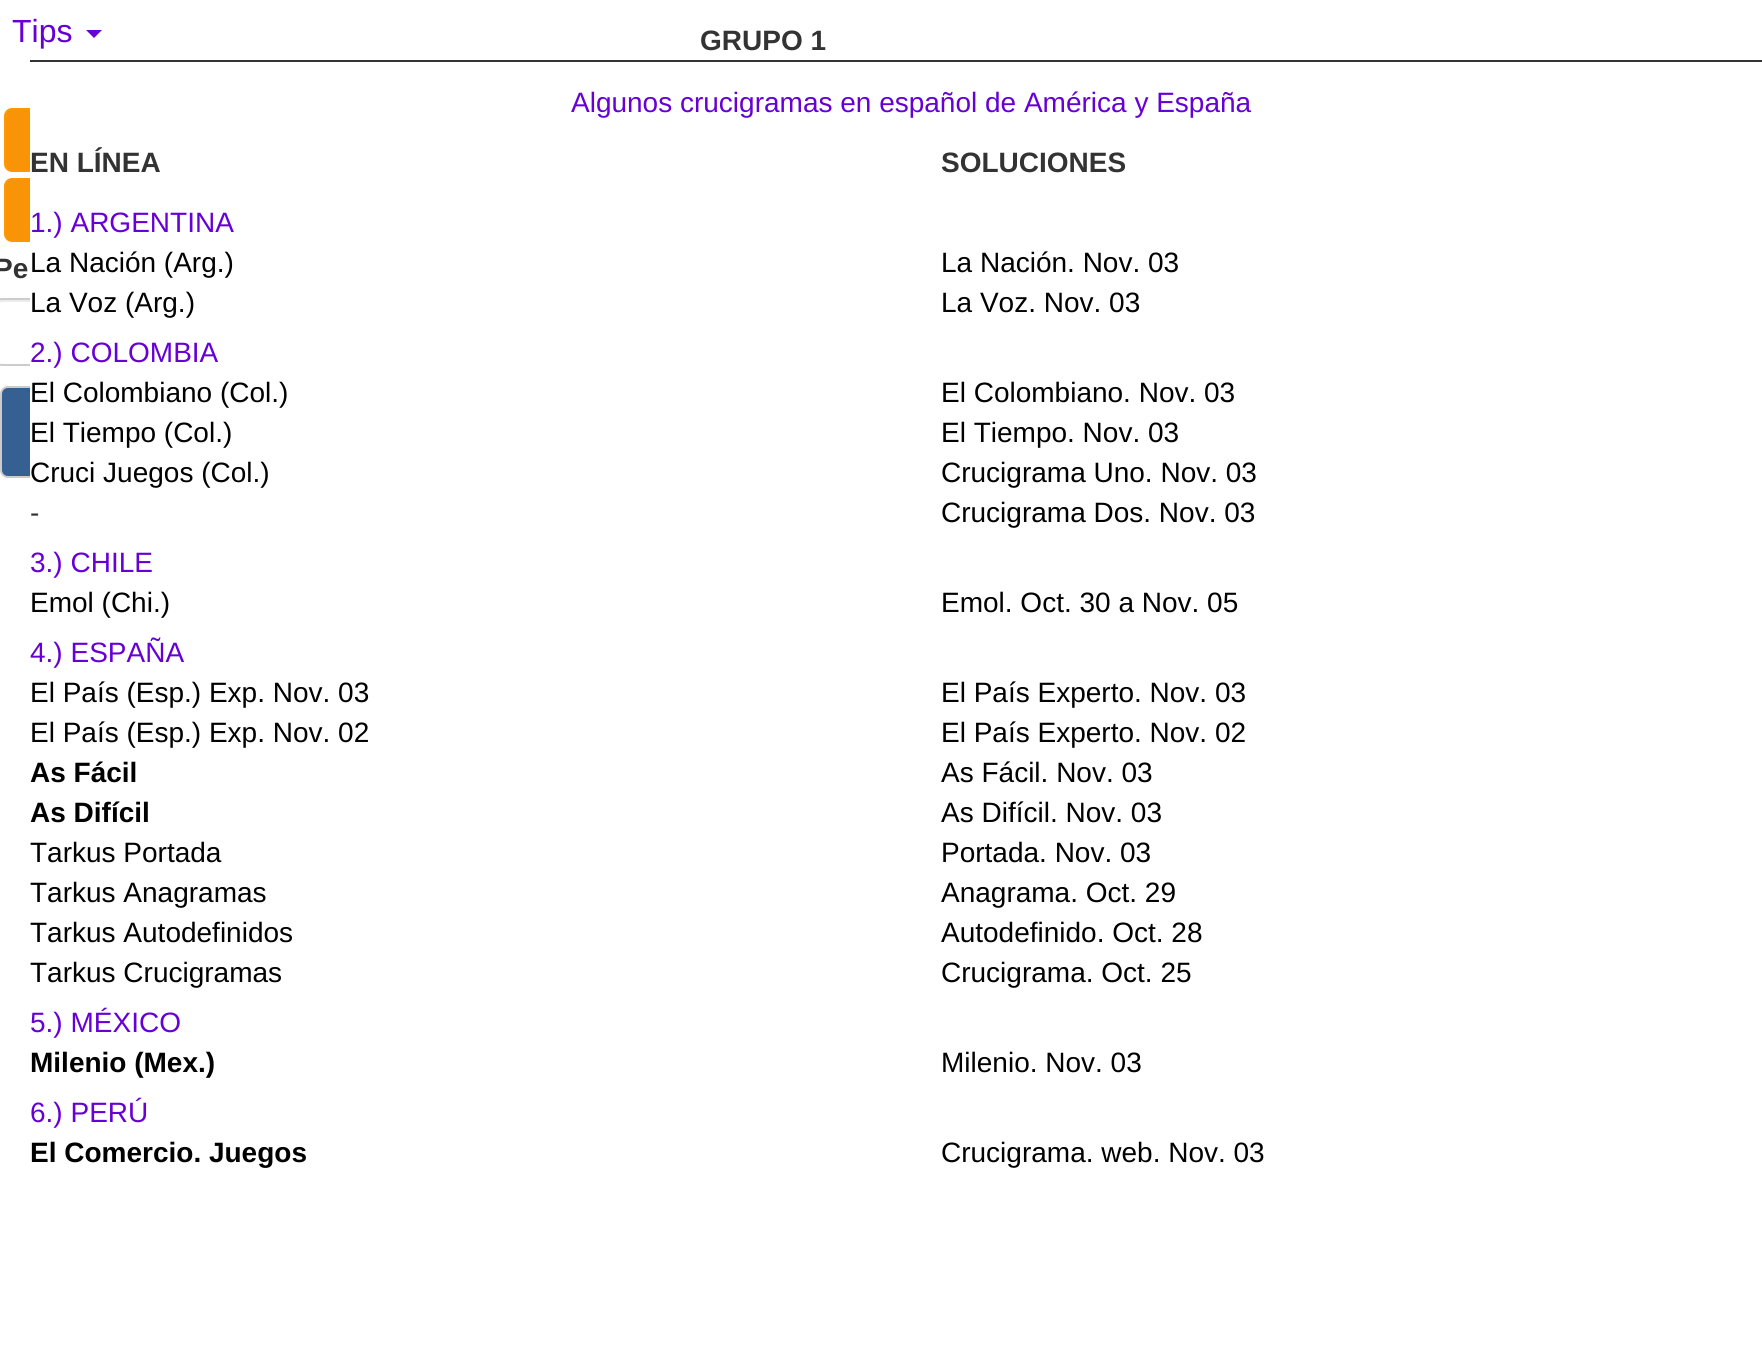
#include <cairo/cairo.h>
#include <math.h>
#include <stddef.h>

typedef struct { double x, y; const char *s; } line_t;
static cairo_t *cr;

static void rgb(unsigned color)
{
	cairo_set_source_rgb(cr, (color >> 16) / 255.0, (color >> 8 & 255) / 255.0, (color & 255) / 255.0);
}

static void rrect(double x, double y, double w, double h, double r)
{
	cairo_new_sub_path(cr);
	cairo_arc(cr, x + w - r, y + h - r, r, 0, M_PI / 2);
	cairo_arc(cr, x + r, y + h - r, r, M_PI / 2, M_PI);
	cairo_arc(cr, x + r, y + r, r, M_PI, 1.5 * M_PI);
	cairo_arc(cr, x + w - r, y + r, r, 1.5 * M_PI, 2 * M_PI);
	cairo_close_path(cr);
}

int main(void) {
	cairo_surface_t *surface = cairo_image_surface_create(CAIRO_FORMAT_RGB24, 1762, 1372);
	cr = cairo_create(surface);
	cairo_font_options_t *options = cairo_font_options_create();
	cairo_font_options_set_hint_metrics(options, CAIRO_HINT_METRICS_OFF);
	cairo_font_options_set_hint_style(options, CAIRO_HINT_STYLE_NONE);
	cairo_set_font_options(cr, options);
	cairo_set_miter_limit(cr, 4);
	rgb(0xffffff);
	cairo_paint(cr);
	rgb(0x6600d5);
	cairo_new_path(cr);
	cairo_move_to(cr, 86, 30);
	cairo_line_to(cr, 102, 30);
	cairo_line_to(cr, 94, 38);
	cairo_close_path(cr);
	cairo_fill(cr);
	rgb(0xf89406);
	rrect(5, 109, 258, 62, 7);
	cairo_fill_preserve(cr);
	rgb(0xff9800);
	cairo_stroke(cr);
	rgb(0xf89406);
	rrect(5, 179, 258, 62, 7);
	cairo_fill_preserve(cr);
	rgb(0xff9800);
	cairo_stroke(cr);
	rgb(0xececec);
	cairo_new_path(cr);
	cairo_move_to(cr, 4, 302);
	cairo_line_to(cr, 1758, 302);
	cairo_curve_to(cr, 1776, 302, 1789, 315, 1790, 333);
	cairo_curve_to(cr, 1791, 315, 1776, 300, 1758, 300);
	cairo_line_to(cr, 4, 300);
	cairo_curve_to(cr, -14, 300, -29, 315, -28, 333);
	cairo_curve_to(cr, -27, 315, -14, 302, 4, 302);
	cairo_close_path(cr);
	cairo_fill(cr);
	rrect(-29, 299, 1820, 66, 33);
	rgb(0xcccccc);
	cairo_stroke(cr);
	rgb(0x376092);
	rrect(1, 387, 880, 90, 7);
	cairo_fill_preserve(cr);
	rgb(0xcccccc);
	cairo_stroke(cr);
	rgb(0xffffff);
	cairo_rectangle(cr, 30, 108, 1732, 370);
	cairo_fill(cr);
	rgb(0x333333);
	cairo_rectangle(cr, 30, 60, 1732, 2);
	cairo_fill(cr);
	cairo_select_font_face(cr, "Liberation Sans", CAIRO_FONT_SLANT_NORMAL, CAIRO_FONT_WEIGHT_NORMAL);
	cairo_set_font_size(cr, 32);
	rgb(0x6600d5);
	cairo_move_to(cr, 12, 42);
	cairo_show_text(cr, "Tips");
	cairo_select_font_face(cr, "Liberation Sans", CAIRO_FONT_SLANT_NORMAL, CAIRO_FONT_WEIGHT_BOLD);
	cairo_set_font_size(cr, 28);
	rgb(0x333333);
	cairo_move_to(cr, 700, 50);
	cairo_show_text(cr, "GRUPO 1");
	cairo_select_font_face(cr, "Liberation Sans", CAIRO_FONT_SLANT_NORMAL, CAIRO_FONT_WEIGHT_NORMAL);
	rgb(0x6600d5);
	cairo_move_to(cr, 571, 112);
	cairo_show_text(cr, "Algunos crucigramas en español de América y España");
	cairo_select_font_face(cr, "Liberation Sans", CAIRO_FONT_SLANT_NORMAL, CAIRO_FONT_WEIGHT_BOLD);
	rgb(0x333333);
	cairo_move_to(cr, 30, 172);
	cairo_show_text(cr, "EN LÍNEA");
	cairo_move_to(cr, 941, 172);
	cairo_show_text(cr, "SOLUCIONES");
	cairo_select_font_face(cr, "Liberation Sans", CAIRO_FONT_SLANT_NORMAL, CAIRO_FONT_WEIGHT_NORMAL);
	rgb(0x6600d5);
	cairo_move_to(cr, 30, 232);
	cairo_show_text(cr, "1.) ARGENTINA");
	rgb(0x000000);
	cairo_move_to(cr, 30, 272);
	cairo_show_text(cr, "La Nación (Arg.)");
	cairo_move_to(cr, 30, 312);
	cairo_show_text(cr, "La Voz (Arg.)");
	rgb(0x6600d5);
	cairo_move_to(cr, 30, 362);
	cairo_show_text(cr, "2.) COLOMBIA");
	rgb(0x000000);
	{
		static const line_t items[] = {
			{30, 402, "El Colombiano (Col.)"},
			{30, 442, "El Tiempo (Col.)"},
			{30, 482, "Cruci Juegos (Col.)"},
		};
		for (size_t i = 0; i < sizeof items / sizeof *items; i++) {
			cairo_move_to(cr, items[i].x, items[i].y);
			cairo_show_text(cr, items[i].s);
		}
	}
	rgb(0x333333);
	cairo_move_to(cr, 30, 522);
	cairo_show_text(cr, "-");
	rgb(0x6600d5);
	cairo_move_to(cr, 30, 572);
	cairo_show_text(cr, "3.) CHILE");
	rgb(0x000000);
	cairo_move_to(cr, 30, 612);
	cairo_show_text(cr, "Emol (Chi.)");
	rgb(0x6600d5);
	cairo_move_to(cr, 30, 662);
	cairo_show_text(cr, "4.) ESPAÑA");
	rgb(0x000000);
	cairo_move_to(cr, 30, 702);
	cairo_show_text(cr, "El País (Esp.) Exp. Nov. 03");
	cairo_move_to(cr, 30, 742);
	cairo_show_text(cr, "El País (Esp.) Exp. Nov. 02");
	cairo_select_font_face(cr, "Liberation Sans", CAIRO_FONT_SLANT_NORMAL, CAIRO_FONT_WEIGHT_BOLD);
	cairo_move_to(cr, 30, 782);
	cairo_show_text(cr, "As Fácil");
	cairo_move_to(cr, 30, 822);
	cairo_show_text(cr, "As Difícil");
	cairo_select_font_face(cr, "Liberation Sans", CAIRO_FONT_SLANT_NORMAL, CAIRO_FONT_WEIGHT_NORMAL);
	{
		static const line_t items[] = {
			{30, 862, "Tarkus Portada"},
			{30, 902, "Tarkus Anagramas"},
			{30, 942, "Tarkus Autodefinidos"},
			{30, 982, "Tarkus Crucigramas"},
		};
		for (size_t i = 0; i < sizeof items / sizeof *items; i++) {
			cairo_move_to(cr, items[i].x, items[i].y);
			cairo_show_text(cr, items[i].s);
		}
	}
	rgb(0x6600d5);
	cairo_move_to(cr, 30, 1032);
	cairo_show_text(cr, "5.) MÉXICO");
	cairo_select_font_face(cr, "Liberation Sans", CAIRO_FONT_SLANT_NORMAL, CAIRO_FONT_WEIGHT_BOLD);
	rgb(0x000000);
	cairo_move_to(cr, 30, 1072);
	cairo_show_text(cr, "Milenio (Mex.)");
	cairo_select_font_face(cr, "Liberation Sans", CAIRO_FONT_SLANT_NORMAL, CAIRO_FONT_WEIGHT_NORMAL);
	rgb(0x6600d5);
	cairo_move_to(cr, 30, 1122);
	cairo_show_text(cr, "6.) PERÚ");
	cairo_select_font_face(cr, "Liberation Sans", CAIRO_FONT_SLANT_NORMAL, CAIRO_FONT_WEIGHT_BOLD);
	rgb(0x000000);
	cairo_move_to(cr, 30, 1162);
	cairo_show_text(cr, "El Comercio. Juegos");
	cairo_select_font_face(cr, "Liberation Sans", CAIRO_FONT_SLANT_NORMAL, CAIRO_FONT_WEIGHT_NORMAL);
	{
		static const line_t items[] = {
			{941, 272, "La Nación. Nov. 03"},
			{941, 312, "La Voz. Nov. 03"},
			{941, 402, "El Colombiano. Nov. 03"},
			{941, 442, "El Tiempo. Nov. 03"},
			{941, 482, "Crucigrama Uno. Nov. 03"},
			{941, 522, "Crucigrama Dos. Nov. 03"},
			{941, 612, "Emol. Oct. 30 a Nov. 05"},
			{941, 702, "El País Experto. Nov. 03"},
			{941, 742, "El País Experto. Nov. 02"},
			{941, 782, "As Fácil. Nov. 03"},
			{941, 822, "As Difícil. Nov. 03"},
			{941, 862, "Portada. Nov. 03"},
			{941, 902, "Anagrama. Oct. 29"},
			{941, 942, "Autodefinido. Oct. 28"},
			{941, 982, "Crucigrama. Oct. 25"},
			{941, 1072, "Milenio. Nov. 03"},
			{941, 1162, "Crucigrama. web. Nov. 03"},
		};
		for (size_t i = 0; i < sizeof items / sizeof *items; i++) {
			cairo_move_to(cr, items[i].x, items[i].y);
			cairo_show_text(cr, items[i].s);
		}
	}
	cairo_select_font_face(cr, "Liberation Sans", CAIRO_FONT_SLANT_NORMAL, CAIRO_FONT_WEIGHT_BOLD);
	rgb(0x333333);
	cairo_move_to(cr, -6, 278);
	cairo_show_text(cr, "Pe");
	cairo_surface_write_to_png(surface, "page.png");
	cairo_font_options_destroy(options);
	cairo_destroy(cr);
	cairo_surface_destroy(surface);
	return 0;
}
